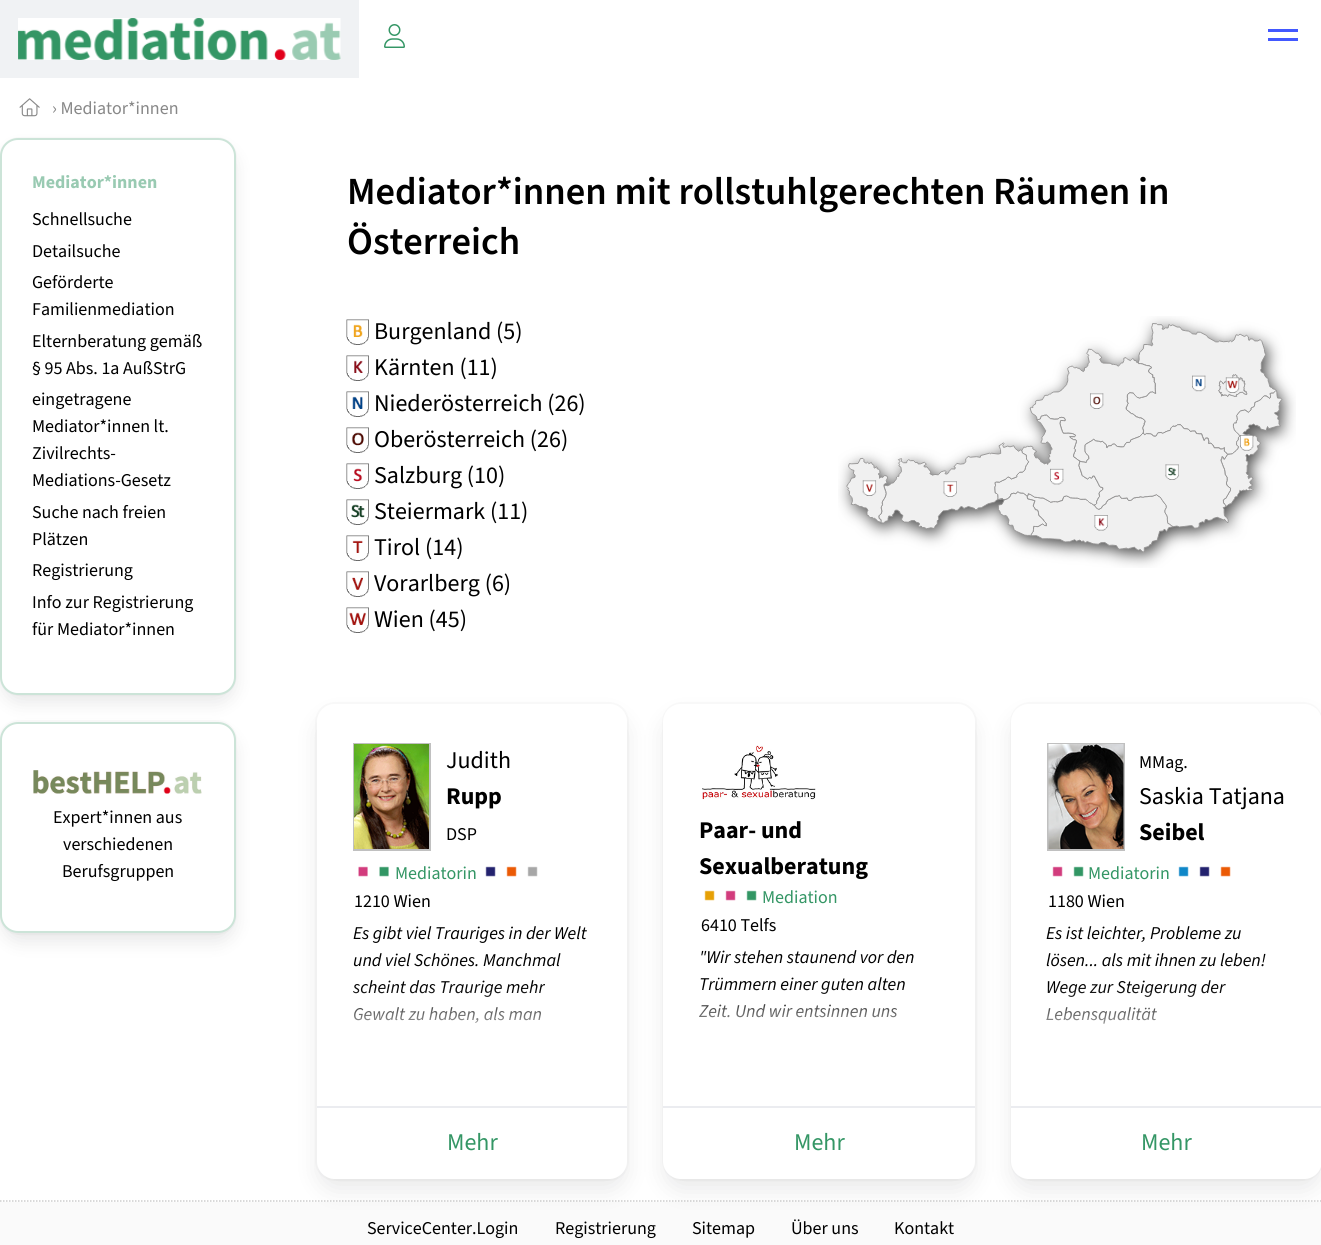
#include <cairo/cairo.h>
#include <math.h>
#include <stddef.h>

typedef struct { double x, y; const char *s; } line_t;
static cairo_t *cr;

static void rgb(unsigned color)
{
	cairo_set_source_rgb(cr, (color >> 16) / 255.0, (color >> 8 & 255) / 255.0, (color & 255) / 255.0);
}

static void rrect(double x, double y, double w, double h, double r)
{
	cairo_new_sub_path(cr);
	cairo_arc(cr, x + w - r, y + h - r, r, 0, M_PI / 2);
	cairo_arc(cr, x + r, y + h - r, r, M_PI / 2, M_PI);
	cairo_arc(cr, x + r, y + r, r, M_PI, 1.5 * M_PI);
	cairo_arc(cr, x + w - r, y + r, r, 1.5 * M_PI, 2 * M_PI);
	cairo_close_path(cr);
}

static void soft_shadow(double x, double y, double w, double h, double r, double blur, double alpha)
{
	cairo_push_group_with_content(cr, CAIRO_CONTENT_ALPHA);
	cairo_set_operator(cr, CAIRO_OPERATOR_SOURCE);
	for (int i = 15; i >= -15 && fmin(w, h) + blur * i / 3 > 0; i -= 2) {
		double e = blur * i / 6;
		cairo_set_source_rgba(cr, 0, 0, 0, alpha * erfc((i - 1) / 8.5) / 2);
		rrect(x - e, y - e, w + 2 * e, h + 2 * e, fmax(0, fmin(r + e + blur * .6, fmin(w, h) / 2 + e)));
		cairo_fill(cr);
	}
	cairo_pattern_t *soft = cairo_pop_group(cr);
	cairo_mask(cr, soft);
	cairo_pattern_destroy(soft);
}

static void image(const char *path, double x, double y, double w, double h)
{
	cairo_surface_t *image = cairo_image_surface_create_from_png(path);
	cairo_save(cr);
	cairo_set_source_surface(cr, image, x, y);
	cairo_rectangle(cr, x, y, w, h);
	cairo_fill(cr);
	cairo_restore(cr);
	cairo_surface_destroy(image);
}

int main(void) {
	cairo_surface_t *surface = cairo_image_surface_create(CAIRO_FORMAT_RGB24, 1321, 1245);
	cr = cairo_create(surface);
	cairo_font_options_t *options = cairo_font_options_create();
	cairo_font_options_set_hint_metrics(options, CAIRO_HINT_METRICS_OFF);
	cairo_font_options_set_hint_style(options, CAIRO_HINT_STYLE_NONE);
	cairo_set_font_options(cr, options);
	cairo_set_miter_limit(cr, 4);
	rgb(0xffffff);
	cairo_paint(cr);
	rgb(0xf0f2f4);
	cairo_rectangle(cr, 0, 0, 359, 78);
	cairo_fill(cr);
	image("img/1.png", 18, 18, 323, 42);
	image("img/2.png", 384, 24, 21, 24);
	rgb(0x4258ff);
	cairo_rectangle(cr, 1268, 29, 30, 3);
	cairo_fill(cr);
	cairo_rectangle(cr, 1268, 38, 30, 3);
	cairo_fill(cr);
	image("img/3.png", 19, 98, 21, 19);
	rrect(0, 138, 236, 557, 19);
	rgb(0xfafafa);
	cairo_stroke(cr);
	rgb(0x090a0c);
	soft_shadow(3, 150, 231, 552, 17, 9, 0.1);
	rgb(0xffffff);
	rrect(1, 139, 234, 555, 17);
	cairo_fill_preserve(cr);
	rgb(0xcce4d8);
	cairo_stroke(cr);
	rrect(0, 721, 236, 213, 19);
	rgb(0xfafafa);
	cairo_stroke(cr);
	rgb(0x090a0c);
	soft_shadow(3, 734, 231, 207, 17, 9, 0.1);
	rgb(0xffffff);
	rrect(1, 723, 234, 209, 17);
	cairo_fill_preserve(cr);
	rgb(0xcce4d8);
	cairo_stroke(cr);
	image("img/4.png", 33, 770, 169, 24);
	image("img/5.png", 346, 319, 23, 26);
	image("img/6.png", 346, 355, 23, 26);
	image("img/7.png", 346, 391, 23, 26);
	image("img/8.png", 346, 427, 23, 26);
	image("img/9.png", 346, 463, 23, 26);
	image("img/10.png", 346, 499, 23, 26);
	image("img/11.png", 346, 535, 23, 26);
	image("img/12.png", 346, 571, 23, 26);
	image("img/13.png", 346, 607, 23, 26);
	image("img/14.png", 838, 316, 458, 252);
	rrect(316, 703, 312, 477, 19);
	rgb(0xfafafa);
	cairo_stroke(cr);
	cairo_rectangle(cr, 0, 1202, 1321, 43);
	cairo_fill(cr);
	rgb(0x090a0c);
	soft_shadow(320, 719, 304, 469, 15, 12, 0.1);
	rgb(0xffffff);
	rrect(317, 704, 310, 475, 18);
	cairo_fill(cr);
	cairo_rectangle(cr, 354, 744, 76, 106);
	rgb(0xc0c0c0);
	cairo_stroke(cr);
	image("img/15.png", 354, 744, 75, 105);
	image("img/16.png", 358, 866, 10, 11);
	image("img/17.png", 379, 866, 10, 11);
	image("img/18.png", 485, 866, 11, 11);
	image("img/19.png", 506, 866, 11, 11);
	image("img/20.png", 527, 866, 11, 11);
	rgb(0xebecf0);
	cairo_rectangle(cr, 317, 1106, 310, 2);
	cairo_fill(cr);
	rrect(663, 703, 313, 477, 19);
	rgb(0xfafafa);
	cairo_stroke(cr);
	rgb(0x090a0c);
	soft_shadow(666, 719, 306, 469, 15, 12, 0.1);
	rgb(0xffffff);
	rrect(663, 704, 312, 475, 18);
	cairo_fill(cr);
	image("img/22.png", 702, 745, 114, 55);
	image("img/23.png", 704, 890, 11, 11);
	image("img/24.png", 725, 890, 11, 11);
	image("img/25.png", 746, 890, 11, 11);
	rgb(0xebecf0);
	cairo_rectangle(cr, 663, 1106, 312, 2);
	cairo_fill(cr);
	rrect(1011, 703, 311, 477, 19);
	rgb(0xfafafa);
	cairo_stroke(cr);
	rgb(0x090a0c);
	soft_shadow(1014, 719, 305, 469, 15, 12, 0.1);
	rgb(0xffffff);
	rrect(1011, 704, 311, 475, 18);
	cairo_fill(cr);
	cairo_rectangle(cr, 1048, 744, 76, 106);
	rgb(0xc0c0c0);
	cairo_stroke(cr);
	image("img/27.png", 1048, 744, 76, 105);
	image("img/24.png", 1052, 866, 11, 11);
	image("img/25.png", 1073, 866, 11, 11);
	image("img/28.png", 1178, 866, 11, 11);
	image("img/18.png", 1199, 866, 11, 11);
	image("img/19.png", 1220, 866, 11, 11);
	rgb(0xebecf0);
	cairo_rectangle(cr, 1011, 1106, 310, 2);
	cairo_fill(cr);
	cairo_new_path(cr);
	cairo_move_to(cr, 0, 1201);
	cairo_line_to(cr, 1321.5, 1201);
	cairo_set_source_rgba(cr, 0.753, 0.753, 0.753, 0.8);
	cairo_set_line_width(cr, 1.5);
	cairo_set_dash(cr, (double[]){1.5, 1.5}, 2, 0);
	cairo_stroke(cr);
	cairo_select_font_face(cr, "Source Sans 3", CAIRO_FONT_SLANT_NORMAL, CAIRO_FONT_WEIGHT_NORMAL);
	cairo_set_font_size(cr, 18);
	rgb(0x888888);
	cairo_move_to(cr, 52, 114);
	cairo_show_text(cr, "› Mediator*innen");
	cairo_select_font_face(cr, "Source Sans 3", CAIRO_FONT_SLANT_NORMAL, CAIRO_FONT_WEIGHT_BOLD);
	rgb(0x99cab2);
	cairo_move_to(cr, 32, 188);
	cairo_show_text(cr, "Mediator*innen");
	cairo_select_font_face(cr, "Source Sans 3", CAIRO_FONT_SLANT_NORMAL, CAIRO_FONT_WEIGHT_NORMAL);
	rgb(0x000000);
	{
		static const line_t items[] = {
			{32, 225, "Schnellsuche"},
			{32, 257, "Detailsuche"},
			{32, 288, "Geförderte"},
			{32, 315, "Familienmediation"},
			{32, 347, "Elternberatung gemäß"},
			{32, 374, "§ 95 Abs. 1a AußStrG"},
			{32, 405, "eingetragene"},
			{32, 432, "Mediator*innen lt."},
			{32, 459, "Zivilrechts-"},
			{32, 486, "Mediations-Gesetz"},
			{32, 518, "Suche nach freien"},
			{32, 545, "Plätzen"},
			{32, 576, "Registrierung"},
			{32, 608, "Info zur Registrierung"},
			{32, 635, "für Mediator*innen"},
			{53, 823, "Expert*innen aus"},
			{63, 850, "verschiedenen"},
			{62, 877, "Berufsgruppen"},
		};
		for (size_t i = 0; i < sizeof items / sizeof *items; i++) {
			cairo_move_to(cr, items[i].x, items[i].y);
			cairo_show_text(cr, items[i].s);
		}
	}
	cairo_select_font_face(cr, "Source Sans 3 SemiBold", CAIRO_FONT_SLANT_NORMAL, CAIRO_FONT_WEIGHT_NORMAL);
	cairo_set_font_size(cr, 38.4);
	cairo_move_to(cr, 347, 204);
	cairo_show_text(cr, "Mediator*innen mit rollstuhlgerechten Räumen in");
	cairo_move_to(cr, 347, 254);
	cairo_show_text(cr, "Österreich");
	cairo_select_font_face(cr, "Source Sans 3", CAIRO_FONT_SLANT_NORMAL, CAIRO_FONT_WEIGHT_NORMAL);
	cairo_set_font_size(cr, 24);
	{
		static const line_t items[] = {
			{374, 339, "Burgenland (5)"},
			{374, 375, "Kärnten (11)"},
			{374, 411, "Niederösterreich (26)"},
			{374, 447, "Oberösterreich (26)"},
			{374, 483, "Salzburg (10)"},
			{374, 519, "Steiermark (11)"},
			{374, 555, "Tirol (14)"},
			{374, 591, "Vorarlberg (6)"},
			{374, 627, "Wien (45)"},
			{446, 768, "Judith"},
		};
		for (size_t i = 0; i < sizeof items / sizeof *items; i++) {
			cairo_move_to(cr, items[i].x, items[i].y);
			cairo_show_text(cr, items[i].s);
		}
	}
	cairo_select_font_face(cr, "Source Sans 3", CAIRO_FONT_SLANT_NORMAL, CAIRO_FONT_WEIGHT_BOLD);
	cairo_move_to(cr, 446, 804);
	cairo_show_text(cr, "Rupp");
	cairo_select_font_face(cr, "Source Sans 3", CAIRO_FONT_SLANT_NORMAL, CAIRO_FONT_WEIGHT_NORMAL);
	cairo_set_font_size(cr, 18);
	cairo_move_to(cr, 446, 840);
	cairo_show_text(cr, "DSP");
	rgb(0x349665);
	cairo_move_to(cr, 395, 879);
	cairo_show_text(cr, "Mediatorin");
	rgb(0x000000);
	cairo_move_to(cr, 354, 907);
	cairo_show_text(cr, "1210 Wien");
	cairo_select_font_face(cr, "Source Sans 3", CAIRO_FONT_SLANT_ITALIC, CAIRO_FONT_WEIGHT_NORMAL);
	{
		static const line_t items[] = {
			{353, 939, "Es gibt viel Trauriges in der Welt"},
			{353, 966, "und viel Schönes. Manchmal"},
			{353, 993, "scheint das Traurige mehr"},
			{353, 1020, "Gewalt zu haben, als man"},
		};
		for (size_t i = 0; i < sizeof items / sizeof *items; i++) {
			cairo_move_to(cr, items[i].x, items[i].y);
			cairo_show_text(cr, items[i].s);
		}
	}
	image("img/21.png", 353, 987, 230, 83);
	cairo_select_font_face(cr, "Source Sans 3", CAIRO_FONT_SLANT_NORMAL, CAIRO_FONT_WEIGHT_NORMAL);
	cairo_set_font_size(cr, 24);
	rgb(0x349665);
	cairo_move_to(cr, 447, 1150);
	cairo_show_text(cr, "Mehr");
	cairo_select_font_face(cr, "Source Sans 3", CAIRO_FONT_SLANT_NORMAL, CAIRO_FONT_WEIGHT_BOLD);
	rgb(0x000000);
	cairo_move_to(cr, 699, 838);
	cairo_show_text(cr, "Paar- und");
	cairo_move_to(cr, 699, 874);
	cairo_show_text(cr, "Sexualberatung");
	cairo_select_font_face(cr, "Source Sans 3", CAIRO_FONT_SLANT_NORMAL, CAIRO_FONT_WEIGHT_NORMAL);
	cairo_set_font_size(cr, 18);
	rgb(0x349665);
	cairo_move_to(cr, 762, 903);
	cairo_show_text(cr, "Mediation");
	rgb(0x000000);
	cairo_move_to(cr, 701, 931);
	cairo_show_text(cr, "6410 Telfs");
	cairo_select_font_face(cr, "Source Sans 3", CAIRO_FONT_SLANT_ITALIC, CAIRO_FONT_WEIGHT_NORMAL);
	{
		static const line_t items[] = {
			{699, 963, "\"Wir stehen staunend vor den"},
			{699, 990, "Trümmern einer guten alten"},
			{699, 1017, "Zeit. Und wir entsinnen uns"},
		};
		for (size_t i = 0; i < sizeof items / sizeof *items; i++) {
			cairo_move_to(cr, items[i].x, items[i].y);
			cairo_show_text(cr, items[i].s);
		}
	}
	image("img/26.png", 699, 987, 234, 83);
	cairo_select_font_face(cr, "Source Sans 3", CAIRO_FONT_SLANT_NORMAL, CAIRO_FONT_WEIGHT_NORMAL);
	cairo_set_font_size(cr, 24);
	rgb(0x349665);
	cairo_move_to(cr, 794, 1150);
	cairo_show_text(cr, "Mehr");
	cairo_set_font_size(cr, 18);
	rgb(0x000000);
	cairo_move_to(cr, 1139, 768);
	cairo_show_text(cr, "MMag.");
	cairo_set_font_size(cr, 24);
	cairo_move_to(cr, 1139, 804);
	cairo_show_text(cr, "Saskia Tatjana");
	cairo_select_font_face(cr, "Source Sans 3", CAIRO_FONT_SLANT_NORMAL, CAIRO_FONT_WEIGHT_BOLD);
	cairo_move_to(cr, 1139, 840);
	cairo_show_text(cr, "Seibel");
	cairo_select_font_face(cr, "Source Sans 3", CAIRO_FONT_SLANT_NORMAL, CAIRO_FONT_WEIGHT_NORMAL);
	cairo_set_font_size(cr, 18);
	rgb(0x349665);
	cairo_move_to(cr, 1088, 879);
	cairo_show_text(cr, "Mediatorin");
	rgb(0x000000);
	cairo_move_to(cr, 1048, 907);
	cairo_show_text(cr, "1180 Wien");
	cairo_select_font_face(cr, "Source Sans 3", CAIRO_FONT_SLANT_ITALIC, CAIRO_FONT_WEIGHT_NORMAL);
	{
		static const line_t items[] = {
			{1046, 939, "Es ist leichter, Probleme zu"},
			{1046, 966, "lösen... als mit ihnen zu leben!"},
			{1046, 993, "Wege zur Steigerung der"},
			{1046, 1020, "Lebensqualität"},
		};
		for (size_t i = 0; i < sizeof items / sizeof *items; i++) {
			cairo_move_to(cr, items[i].x, items[i].y);
			cairo_show_text(cr, items[i].s);
		}
	}
	image("img/29.png", 1047, 987, 175, 37);
	cairo_select_font_face(cr, "Source Sans 3", CAIRO_FONT_SLANT_NORMAL, CAIRO_FONT_WEIGHT_NORMAL);
	cairo_set_font_size(cr, 24);
	rgb(0x349665);
	cairo_move_to(cr, 1141, 1150);
	cairo_show_text(cr, "Mehr");
	cairo_set_font_size(cr, 18);
	rgb(0x000000);
	{
		static const line_t items[] = {
			{367, 1234, "ServiceCenter.Login"},
			{555, 1234, "Registrierung"},
			{692, 1234, "Sitemap"},
			{791, 1234, "Über uns"},
			{894, 1234, "Kontakt"},
		};
		for (size_t i = 0; i < sizeof items / sizeof *items; i++) {
			cairo_move_to(cr, items[i].x, items[i].y);
			cairo_show_text(cr, items[i].s);
		}
	}
	cairo_surface_write_to_png(surface, "page.png");
	cairo_font_options_destroy(options);
	cairo_destroy(cr);
	cairo_surface_destroy(surface);
	return 0;
}
